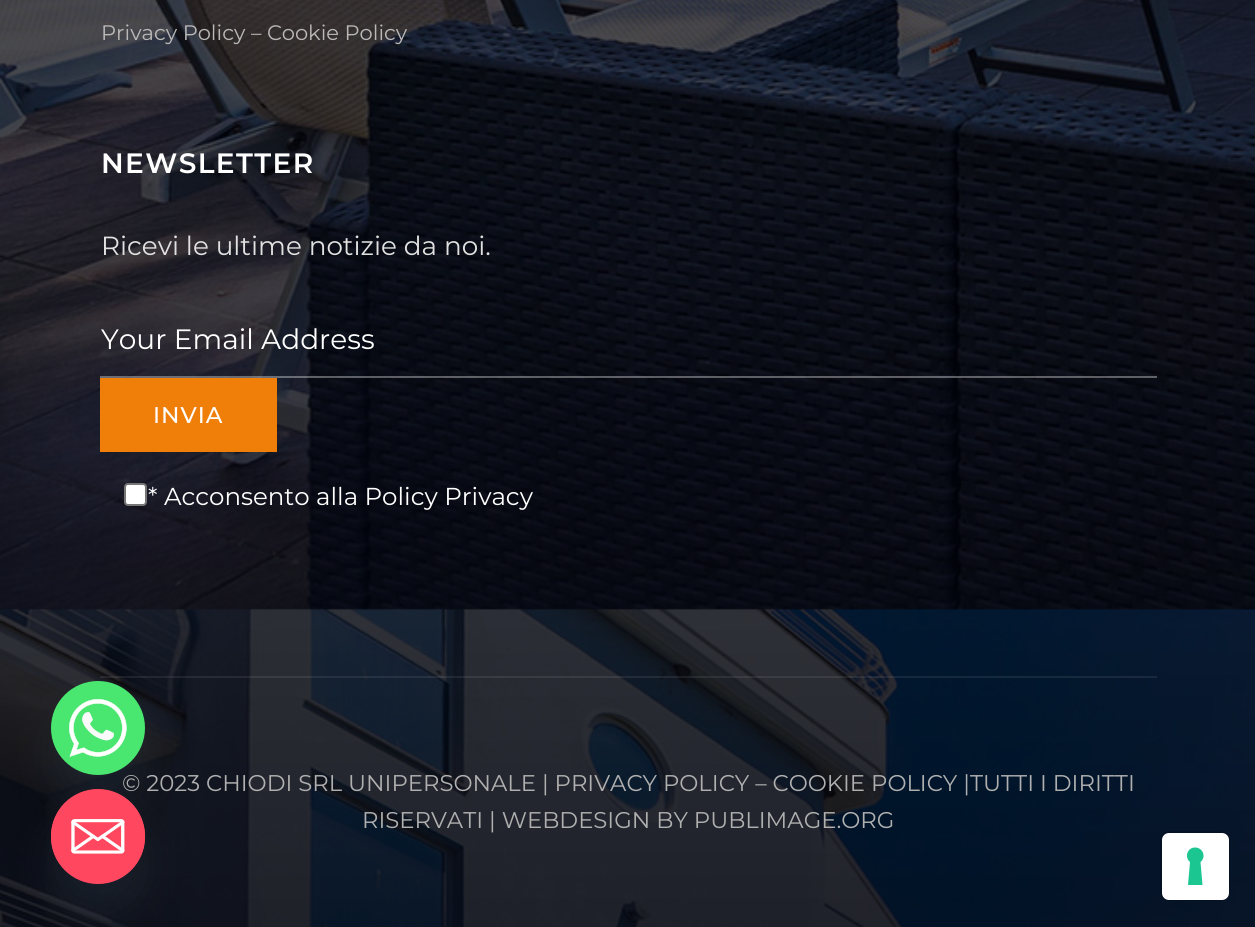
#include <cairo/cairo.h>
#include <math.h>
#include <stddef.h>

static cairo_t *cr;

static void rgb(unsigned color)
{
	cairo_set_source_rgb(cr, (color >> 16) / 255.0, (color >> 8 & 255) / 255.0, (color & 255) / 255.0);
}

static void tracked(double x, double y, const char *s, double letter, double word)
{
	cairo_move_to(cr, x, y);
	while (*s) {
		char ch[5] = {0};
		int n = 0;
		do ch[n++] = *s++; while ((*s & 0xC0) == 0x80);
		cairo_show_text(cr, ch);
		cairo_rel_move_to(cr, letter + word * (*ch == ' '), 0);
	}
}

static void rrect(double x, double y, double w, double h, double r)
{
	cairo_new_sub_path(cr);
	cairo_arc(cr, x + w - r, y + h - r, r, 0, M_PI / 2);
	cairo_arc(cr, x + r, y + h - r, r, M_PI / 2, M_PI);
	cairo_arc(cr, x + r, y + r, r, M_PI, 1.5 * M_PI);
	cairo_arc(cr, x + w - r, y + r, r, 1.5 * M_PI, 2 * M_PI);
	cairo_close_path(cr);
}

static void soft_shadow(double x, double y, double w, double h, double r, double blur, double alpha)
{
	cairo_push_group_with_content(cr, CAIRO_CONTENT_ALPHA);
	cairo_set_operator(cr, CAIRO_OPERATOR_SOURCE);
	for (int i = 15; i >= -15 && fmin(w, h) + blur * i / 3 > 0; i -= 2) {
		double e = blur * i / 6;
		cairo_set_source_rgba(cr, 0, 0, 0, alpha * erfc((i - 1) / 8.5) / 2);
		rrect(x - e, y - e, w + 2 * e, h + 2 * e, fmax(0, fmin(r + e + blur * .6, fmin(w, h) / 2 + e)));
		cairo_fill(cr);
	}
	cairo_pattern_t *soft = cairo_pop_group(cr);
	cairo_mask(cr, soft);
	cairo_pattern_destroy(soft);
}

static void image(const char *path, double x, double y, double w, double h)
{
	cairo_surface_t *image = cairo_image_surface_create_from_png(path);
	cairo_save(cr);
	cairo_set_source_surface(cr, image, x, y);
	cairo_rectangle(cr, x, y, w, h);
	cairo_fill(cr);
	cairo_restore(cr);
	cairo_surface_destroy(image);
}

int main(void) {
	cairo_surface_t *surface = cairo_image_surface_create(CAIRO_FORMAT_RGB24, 1255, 927);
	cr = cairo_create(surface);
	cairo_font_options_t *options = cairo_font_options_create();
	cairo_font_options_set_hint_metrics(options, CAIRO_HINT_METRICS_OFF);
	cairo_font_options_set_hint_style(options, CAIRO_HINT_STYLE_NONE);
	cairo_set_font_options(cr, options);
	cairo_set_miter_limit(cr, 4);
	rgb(0xffffff);
	cairo_paint(cr);
	image("img/1.png", 0, 0, 1255, 927);
	cairo_set_source_rgba(cr, 1, 1, 1, 0.35);
	cairo_rectangle(cr, 100, 376, 1057, 2);
	cairo_fill(cr);
	rgb(0xf07f0a);
	cairo_rectangle(cr, 100, 378, 177, 74);
	cairo_fill(cr);
	rgb(0xffffff);
	rrect(125, 484, 21, 21, 3);
	cairo_fill_preserve(cr);
	rgb(0x767676);
	cairo_stroke(cr);
	cairo_set_source_rgba(cr, 1, 1, 1, 0.08);
	cairo_rectangle(cr, 100, 676, 1057, 2);
	cairo_fill(cr);
	rgb(0x49687e);
	soft_shadow(51, 709, 94, 94, 47, 21, 0.16);
	rrect(1161, 832, 68, 68, 8);
	cairo_set_source_rgba(cr, 0, 0, 0, 0.15);
	cairo_stroke(cr);
	rgb(0xffffff);
	rrect(1162, 833, 67, 67, 7);
	cairo_fill(cr);
	rgb(0x1cc691);
	cairo_set_fill_rule(cr, CAIRO_FILL_RULE_EVEN_ODD);
	cairo_new_path(cr);
	cairo_move_to(cr, 1195, 847.5);
	cairo_curve_to(cr, 1203, 847.5, 1206.5, 857, 1200.5, 862);
	cairo_line_to(cr, 1202.5, 885);
	cairo_line_to(cr, 1188, 885);
	cairo_line_to(cr, 1190, 862);
	cairo_curve_to(cr, 1184, 857, 1187.5, 847.5, 1195, 847.5);
	cairo_close_path(cr);
	cairo_fill(cr);
	cairo_select_font_face(cr, "Montserrat", CAIRO_FONT_SLANT_NORMAL, CAIRO_FONT_WEIGHT_NORMAL);
	cairo_set_font_size(cr, 21);
	rgb(0xbbb8b8);
	cairo_move_to(cr, 101, 40);
	cairo_show_text(cr, "Privacy Policy – Cookie Policy");
	cairo_select_font_face(cr, "Montserrat SemiBold", CAIRO_FONT_SLANT_NORMAL, CAIRO_FONT_WEIGHT_NORMAL);
	cairo_set_font_size(cr, 28);
	rgb(0xffffff);
	tracked(101, 173, "NEWSLETTER", 1.4, 0);
	cairo_select_font_face(cr, "Montserrat", CAIRO_FONT_SLANT_NORMAL, CAIRO_FONT_WEIGHT_NORMAL);
	cairo_set_font_size(cr, 26.25);
	rgb(0xe1e1e1);
	cairo_move_to(cr, 101, 255);
	cairo_show_text(cr, "Ricevi le ultime notizie da noi.");
	cairo_set_font_size(cr, 28);
	rgb(0xffffff);
	cairo_move_to(cr, 101, 349);
	cairo_show_text(cr, "Your Email Address");
	cairo_select_font_face(cr, "Montserrat Medium", CAIRO_FONT_SLANT_NORMAL, CAIRO_FONT_WEIGHT_NORMAL);
	cairo_set_font_size(cr, 22.75);
	tracked(153, 423, "INVIA", 1, 0);
	cairo_select_font_face(cr, "Montserrat", CAIRO_FONT_SLANT_NORMAL, CAIRO_FONT_WEIGHT_NORMAL);
	cairo_set_font_size(cr, 24.5);
	cairo_move_to(cr, 148, 505);
	cairo_show_text(cr, "* Acconsento alla Policy Privacy");
	cairo_set_font_size(cr, 22.75);
	rgb(0xb0b0b0);
	cairo_move_to(cr, 122, 791);
	cairo_show_text(cr, "© 2023 CHIODI SRL UNIPERSONALE | PRIVACY POLICY – COOKIE POLICY |TUTTI I DIRITTI");
	cairo_move_to(cr, 362, 828);
	cairo_show_text(cr, "RISERVATI | WEBDESIGN BY PUBLIMAGE.ORG");
	image("img/2.png", 51, 681, 94, 94);
	rgb(0x49687e);
	soft_shadow(51, 817, 94, 95, 47, 21, 0.16);
	rgb(0xff485f);
	rrect(51, 789, 94, 95, 47);
	cairo_fill(cr);
	image("img/3.png", 51, 789, 94, 95);
	cairo_surface_write_to_png(surface, "page.png");
	cairo_font_options_destroy(options);
	cairo_destroy(cr);
	cairo_surface_destroy(surface);
	return 0;
}
